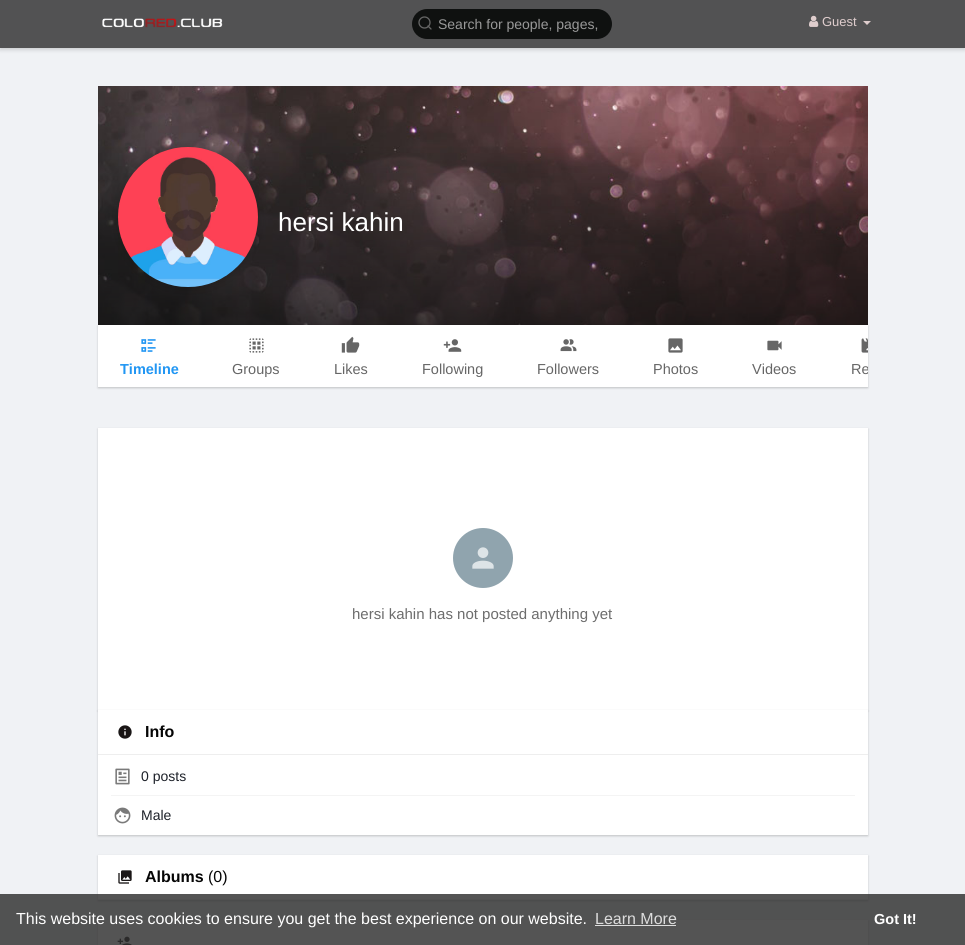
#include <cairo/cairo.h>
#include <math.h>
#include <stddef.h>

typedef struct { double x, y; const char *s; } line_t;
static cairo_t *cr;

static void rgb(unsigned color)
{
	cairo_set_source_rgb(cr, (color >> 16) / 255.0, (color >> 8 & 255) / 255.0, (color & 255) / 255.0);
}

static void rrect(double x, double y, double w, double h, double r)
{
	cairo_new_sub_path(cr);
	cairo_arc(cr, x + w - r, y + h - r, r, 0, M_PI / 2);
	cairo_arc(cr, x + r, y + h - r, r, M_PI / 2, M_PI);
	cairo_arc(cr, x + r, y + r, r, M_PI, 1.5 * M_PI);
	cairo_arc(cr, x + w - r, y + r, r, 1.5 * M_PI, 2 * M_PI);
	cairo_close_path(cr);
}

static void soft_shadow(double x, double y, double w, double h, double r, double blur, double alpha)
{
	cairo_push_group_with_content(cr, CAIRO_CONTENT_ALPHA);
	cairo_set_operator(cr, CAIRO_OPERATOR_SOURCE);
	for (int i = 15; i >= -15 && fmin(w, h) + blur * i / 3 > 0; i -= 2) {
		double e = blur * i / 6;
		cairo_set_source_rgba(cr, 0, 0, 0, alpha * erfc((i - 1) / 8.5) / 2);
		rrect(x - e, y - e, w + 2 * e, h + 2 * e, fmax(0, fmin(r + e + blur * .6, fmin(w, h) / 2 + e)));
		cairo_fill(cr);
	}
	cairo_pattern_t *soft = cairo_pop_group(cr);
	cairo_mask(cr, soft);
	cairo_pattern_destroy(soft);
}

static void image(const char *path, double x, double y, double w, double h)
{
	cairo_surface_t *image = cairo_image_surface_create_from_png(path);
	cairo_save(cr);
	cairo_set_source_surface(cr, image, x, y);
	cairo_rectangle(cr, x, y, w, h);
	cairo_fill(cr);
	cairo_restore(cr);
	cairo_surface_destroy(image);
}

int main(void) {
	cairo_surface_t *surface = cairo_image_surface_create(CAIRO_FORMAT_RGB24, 965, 945);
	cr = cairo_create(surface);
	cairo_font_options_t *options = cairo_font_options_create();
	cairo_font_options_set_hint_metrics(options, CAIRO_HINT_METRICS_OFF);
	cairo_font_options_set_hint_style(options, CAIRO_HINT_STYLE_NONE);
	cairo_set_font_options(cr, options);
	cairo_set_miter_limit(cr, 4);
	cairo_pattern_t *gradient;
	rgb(0xf0f2f5);
	cairo_paint(cr);
	rgb(0x000000);
	soft_shadow(0, 2, 965, 48, 0, 2, 0.15);
	rgb(0x525253);
	cairo_rectangle(cr, 0, 0, 965, 48);
	cairo_fill(cr);
	image("img/1.png", 102, 18, 121, 10);
	rgb(0x0f1110);
	rrect(412, 9, 200, 30, 15);
	cairo_fill(cr);
	cairo_arc(cr, 424.5, 22.5, 5.5, 0, 2 * M_PI);
	rgb(0x666666);
	cairo_set_line_width(cr, 1.3);
	cairo_stroke(cr);
	cairo_new_path(cr);
	cairo_move_to(cr, 431, 29);
	cairo_line_to(cr, 428, 26);
	cairo_set_line_cap(cr, CAIRO_LINE_CAP_ROUND);
	cairo_set_line_join(cr, CAIRO_LINE_JOIN_ROUND);
	cairo_stroke(cr);
	image("img/2.png", 809, 15, 10, 12);
	rgb(0xdfcdcd);
	cairo_new_path(cr);
	cairo_move_to(cr, 863, 21);
	cairo_line_to(cr, 871, 21);
	cairo_line_to(cr, 867, 25);
	cairo_close_path(cr);
	cairo_fill(cr);
	image("img/3.png", 98, 86, 770, 239);
	gradient = cairo_pattern_create_linear(483, 137, 483, 337);
	cairo_pattern_add_color_stop_rgba(gradient, 0, 0, 0, 0, 0);
	cairo_pattern_add_color_stop_rgba(gradient, 1, 0, 0, 0, 0.45);
	cairo_set_source(cr, gradient);
	cairo_pattern_destroy(gradient);
	cairo_rectangle(cr, 98, 147, 770, 178);
	cairo_fill(cr);
	rgb(0x000000);
	soft_shadow(118, 149, 140, 140, 70, 5, 0.15);
	image("img/4.png", 118, 147, 140, 140);
	soft_shadow(98, 326, 770, 62, 0, 1, 0.2);
	rgb(0xffffff);
	cairo_rectangle(cr, 98, 325, 770, 62);
	cairo_fill(cr);
	image("img/5.png", 141, 339, 15, 13);
	image("img/6.png", 249, 338, 15, 15);
	image("img/7.png", 341, 336, 19, 17);
	image("img/8.png", 443, 339, 19, 13);
	image("img/9.png", 560, 339, 17, 13);
	image("img/10.png", 668, 338, 15, 15);
	image("img/11.png", 767, 340, 15, 11);
	image("img/12.png", 861, 338, 7, 15);
	rgb(0x000000);
	soft_shadow(98, 429, 770, 282, 0, 1, 0.2);
	rgb(0xffffff);
	cairo_rectangle(cr, 98, 428, 770, 282);
	cairo_fill(cr);
	rgb(0x90a4ae);
	cairo_arc(cr, 483, 558, 30, 0, 2 * M_PI);
	cairo_fill(cr);
	image("img/13.png", 472, 547, 22, 22);
	rgb(0x000000);
	soft_shadow(98, 711, 770, 125, 0, 1, 0.2);
	rgb(0xffffff);
	cairo_rectangle(cr, 98, 710, 770, 125);
	cairo_fill(cr);
	rgb(0xeeeeee);
	cairo_rectangle(cr, 98, 754, 770, 1);
	cairo_fill(cr);
	image("img/14.png", 118, 725, 14, 14);
	image("img/15.png", 115, 768, 15, 17);
	rgb(0xf4f4f4);
	cairo_rectangle(cr, 111, 795, 744, 1);
	cairo_fill(cr);
	image("img/16.png", 114, 807, 17, 17);
	rgb(0x000000);
	soft_shadow(98, 856, 770, 45, 0, 1, 0.2);
	rgb(0xffffff);
	cairo_rectangle(cr, 98, 855, 770, 44);
	cairo_fill(cr);
	rgb(0xeeeeee);
	cairo_rectangle(cr, 98, 899, 770, 1);
	cairo_fill(cr);
	image("img/17.png", 118, 870, 14, 14);
	rgb(0x000000);
	soft_shadow(98, 921, 770, 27, 0, 1, 0.2);
	rgb(0xffffff);
	cairo_rectangle(cr, 98, 920, 770, 25);
	cairo_fill(cr);
	image("img/18.png", 117, 936, 15, 9);
	cairo_set_source_rgba(cr, 0.184, 0.184, 0.184, 0.82);
	cairo_rectangle(cr, 0, 894, 965, 51);
	cairo_fill(cr);
	rgb(0xdddddd);
	cairo_rectangle(cr, 595, 925, 81, 1);
	cairo_fill(cr);
	cairo_select_font_face(cr, "Liberation Sans", CAIRO_FONT_SLANT_NORMAL, CAIRO_FONT_WEIGHT_NORMAL);
	cairo_set_font_size(cr, 14);
	rgb(0x999999);
	cairo_move_to(cr, 438, 29);
	cairo_show_text(cr, "Search for people, pages,");
	cairo_set_font_size(cr, 13);
	rgb(0xdfcdcd);
	cairo_move_to(cr, 822, 26);
	cairo_show_text(cr, "Guest");
	cairo_set_font_size(cr, 26);
	rgb(0xffffff);
	cairo_move_to(cr, 278, 231);
	cairo_show_text(cr, "hersi kahin");
	cairo_select_font_face(cr, "Liberation Sans", CAIRO_FONT_SLANT_NORMAL, CAIRO_FONT_WEIGHT_BOLD);
	cairo_set_font_size(cr, 14.5);
	rgb(0x2196f3);
	cairo_move_to(cr, 120, 374);
	cairo_show_text(cr, "Timeline");
	cairo_select_font_face(cr, "Liberation Sans", CAIRO_FONT_SLANT_NORMAL, CAIRO_FONT_WEIGHT_NORMAL);
	rgb(0x666666);
	{
		static const line_t items[] = {
			{232, 374, "Groups"},
			{334, 374, "Likes"},
			{422, 374, "Following"},
			{537, 374, "Followers"},
			{653, 374, "Photos"},
			{752, 374, "Videos"},
		};
		for (size_t i = 0; i < sizeof items / sizeof *items; i++) {
			cairo_move_to(cr, items[i].x, items[i].y);
			cairo_show_text(cr, items[i].s);
		}
	}
	cairo_save(cr);
	cairo_rectangle(cr, 98, 325, 770, 63);
	cairo_clip(cr);
	cairo_move_to(cr, 851, 374);
	cairo_show_text(cr, "Re");
	cairo_restore(cr);
	cairo_set_font_size(cr, 15);
	rgb(0x6d6d6d);
	cairo_move_to(cr, 352, 619);
	cairo_show_text(cr, "hersi kahin has not posted anything yet");
	cairo_select_font_face(cr, "Liberation Sans", CAIRO_FONT_SLANT_NORMAL, CAIRO_FONT_WEIGHT_BOLD);
	cairo_set_font_size(cr, 16);
	rgb(0x050505);
	cairo_move_to(cr, 145, 737);
	cairo_show_text(cr, "Info");
	cairo_select_font_face(cr, "Liberation Sans", CAIRO_FONT_SLANT_NORMAL, CAIRO_FONT_WEIGHT_NORMAL);
	cairo_set_font_size(cr, 14);
	rgb(0x1d2129);
	cairo_move_to(cr, 141, 781);
	cairo_show_text(cr, "0 posts");
	cairo_move_to(cr, 141, 820);
	cairo_show_text(cr, "Male");
	cairo_select_font_face(cr, "Liberation Sans", CAIRO_FONT_SLANT_NORMAL, CAIRO_FONT_WEIGHT_BOLD);
	cairo_set_font_size(cr, 16);
	rgb(0x050505);
	cairo_move_to(cr, 145, 882);
	cairo_show_text(cr, "Albums");
	cairo_select_font_face(cr, "Liberation Sans", CAIRO_FONT_SLANT_NORMAL, CAIRO_FONT_WEIGHT_NORMAL);
	cairo_move_to(cr, 208, 882);
	cairo_show_text(cr, "(0)");
	rgb(0xffffff);
	cairo_move_to(cr, 16, 924);
	cairo_show_text(cr, "This website uses cookies to ensure you get the best experience on our website.");
	rgb(0xdddddd);
	cairo_move_to(cr, 595, 924);
	cairo_show_text(cr, "Learn More");
	cairo_select_font_face(cr, "Liberation Sans", CAIRO_FONT_SLANT_NORMAL, CAIRO_FONT_WEIGHT_BOLD);
	cairo_set_font_size(cr, 14.5);
	rgb(0xffffff);
	cairo_move_to(cr, 874, 924);
	cairo_show_text(cr, "Got It!");
	cairo_surface_write_to_png(surface, "page.png");
	cairo_font_options_destroy(options);
	cairo_destroy(cr);
	cairo_surface_destroy(surface);
	return 0;
}
